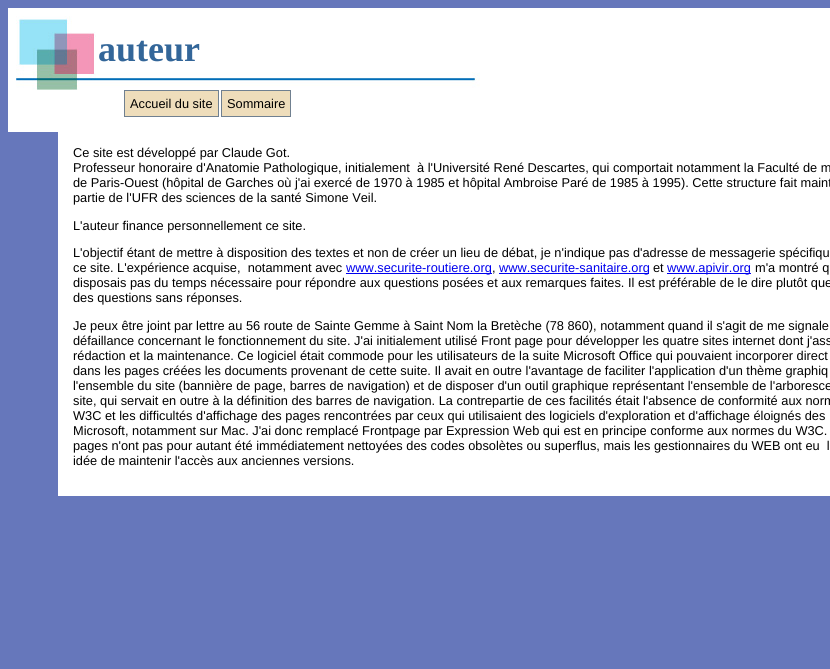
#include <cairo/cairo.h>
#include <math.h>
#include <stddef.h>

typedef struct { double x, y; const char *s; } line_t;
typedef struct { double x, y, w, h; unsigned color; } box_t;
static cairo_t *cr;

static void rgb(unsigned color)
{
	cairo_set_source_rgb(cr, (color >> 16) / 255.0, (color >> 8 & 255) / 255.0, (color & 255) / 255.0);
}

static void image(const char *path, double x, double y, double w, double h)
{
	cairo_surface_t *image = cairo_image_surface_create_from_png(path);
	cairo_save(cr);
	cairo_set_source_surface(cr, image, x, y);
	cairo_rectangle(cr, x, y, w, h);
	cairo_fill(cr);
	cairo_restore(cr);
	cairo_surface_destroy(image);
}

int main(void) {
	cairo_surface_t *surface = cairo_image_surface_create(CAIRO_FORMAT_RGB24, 830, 669);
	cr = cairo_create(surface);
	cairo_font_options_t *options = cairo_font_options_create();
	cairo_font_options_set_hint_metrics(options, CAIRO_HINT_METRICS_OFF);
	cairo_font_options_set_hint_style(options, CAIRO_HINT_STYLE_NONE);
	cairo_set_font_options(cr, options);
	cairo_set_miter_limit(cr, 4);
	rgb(0x6677bb);
	cairo_paint(cr);
	rgb(0xffffff);
	cairo_rectangle(cr, 8, 8, 822, 109);
	cairo_fill(cr);
	image("img/1.png", 16, 16, 464, 74);
	rgb(0xeeddbb);
	cairo_rectangle(cr, 124.5, 90.5, 94, 26);
	cairo_fill_preserve(cr);
	rgb(0x708090);
	cairo_set_line_width(cr, 1);
	cairo_stroke(cr);
	rgb(0xeeddbb);
	cairo_rectangle(cr, 221.5, 90.5, 69, 26);
	cairo_fill_preserve(cr);
	rgb(0x708090);
	cairo_stroke(cr);
	{
		static const box_t items[] = {
			{8, 117, 50, 15, 0xffffff},
			{58, 117, 772, 379, 0xffffff},
			{346, 273, 146, 1, 0x0000ee},
			{499, 273, 150, 1, 0x0000ee},
			{667, 273, 84, 1, 0x0000ee},
		};
		for (size_t i = 0; i < sizeof items / sizeof *items; i++) {
			rgb(items[i].color);
			cairo_rectangle(cr, items[i].x, items[i].y, items[i].w, items[i].h);
			cairo_fill(cr);
		}
	}
	cairo_select_font_face(cr, "Liberation Serif", CAIRO_FONT_SLANT_NORMAL, CAIRO_FONT_WEIGHT_BOLD);
	cairo_set_font_size(cr, 36);
	rgb(0x336699);
	cairo_move_to(cr, 98, 61);
	cairo_show_text(cr, "auteur");
	cairo_select_font_face(cr, "Liberation Sans", CAIRO_FONT_SLANT_NORMAL, CAIRO_FONT_WEIGHT_NORMAL);
	cairo_set_font_size(cr, 12.8);
	rgb(0x000000);
	{
		static const line_t items[] = {
			{130, 108, "Accueil du site"},
			{227, 108, "Sommaire"},
			{73, 157, "Ce site est développé par Claude Got."},
			{73, 172, "Professeur honoraire d'Anatomie Pathologique, initialement  à l'Université René Descartes, qui comportait notamment la Faculté de m"},
			{73, 187, "de Paris-Ouest (hôpital de Garches où j'ai exercé de 1970 à 1985 et hôpital Ambroise Paré de 1985 à 1995). Cette structure fait maint"},
			{73, 202, "partie de l'UFR des sciences de la santé Simone Veil."},
			{73, 230, "L'auteur finance personnellement ce site."},
			{73, 257, "L'objectif étant de mettre à disposition des textes et non de créer un lieu de débat, je n'indique pas d'adresse de messagerie spécifiqu"},
			{73, 272, "ce site. L'expérience acquise,  notamment avec"},
		};
		for (size_t i = 0; i < sizeof items / sizeof *items; i++) {
			cairo_move_to(cr, items[i].x, items[i].y);
			cairo_show_text(cr, items[i].s);
		}
	}
	rgb(0x0000ee);
	cairo_move_to(cr, 346, 272);
	cairo_show_text(cr, "www.securite-routiere.org");
	rgb(0x000000);
	cairo_move_to(cr, 492, 272);
	cairo_show_text(cr, ",");
	rgb(0x0000ee);
	cairo_move_to(cr, 499, 272);
	cairo_show_text(cr, "www.securite-sanitaire.org");
	rgb(0x000000);
	cairo_move_to(cr, 653, 272);
	cairo_show_text(cr, "et");
	rgb(0x0000ee);
	cairo_move_to(cr, 667, 272);
	cairo_show_text(cr, "www.apivir.org");
	rgb(0x000000);
	{
		static const line_t items[] = {
			{755, 272, "m'a montré q"},
			{73, 287, "disposais pas du temps nécessaire pour répondre aux questions posées et aux remarques faites. Il est préférable de le dire plutôt que"},
			{73, 302, "des questions sans réponses."},
			{73, 330, "Je peux être joint par lettre au 56 route de Sainte Gemme à Saint Nom la Bretèche (78 860), notamment quand il s'agit de me signale"},
			{73, 345, "défaillance concernant le fonctionnement du site. J'ai initialement utilisé Front page pour développer les quatre sites internet dont j'ass"},
			{73, 360, "rédaction et la maintenance. Ce logiciel était commode pour les utilisateurs de la suite Microsoft Office qui pouvaient incorporer direct"},
			{73, 375, "dans les pages créées les documents provenant de cette suite. Il avait en outre l'avantage de faciliter l'application d'un thème graphiq"},
			{73, 390, "l'ensemble du site (bannière de page, barres de navigation) et de disposer d'un outil graphique représentant l'ensemble de l'arboresce"},
			{73, 405, "site, qui servait en outre à la définition des barres de navigation. La contrepartie de ces facilités était l'absence de conformité aux norm"},
			{73, 420, "W3C et les difficultés d'affichage des pages rencontrées par ceux qui utilisaient des logiciels d'exploration et d'affichage éloignés des"},
			{73, 435, "Microsoft, notamment sur Mac. J'ai donc remplacé Frontpage par Expression Web qui est en principe conforme aux normes du W3C."},
			{73, 450, "pages n'ont pas pour autant été immédiatement nettoyées des codes obsolètes ou superflus, mais les gestionnaires du WEB ont eu  l"},
			{73, 465, "idée de maintenir l'accès aux anciennes versions."},
		};
		for (size_t i = 0; i < sizeof items / sizeof *items; i++) {
			cairo_move_to(cr, items[i].x, items[i].y);
			cairo_show_text(cr, items[i].s);
		}
	}
	cairo_surface_write_to_png(surface, "page.png");
	cairo_font_options_destroy(options);
	cairo_destroy(cr);
	cairo_surface_destroy(surface);
	return 0;
}
